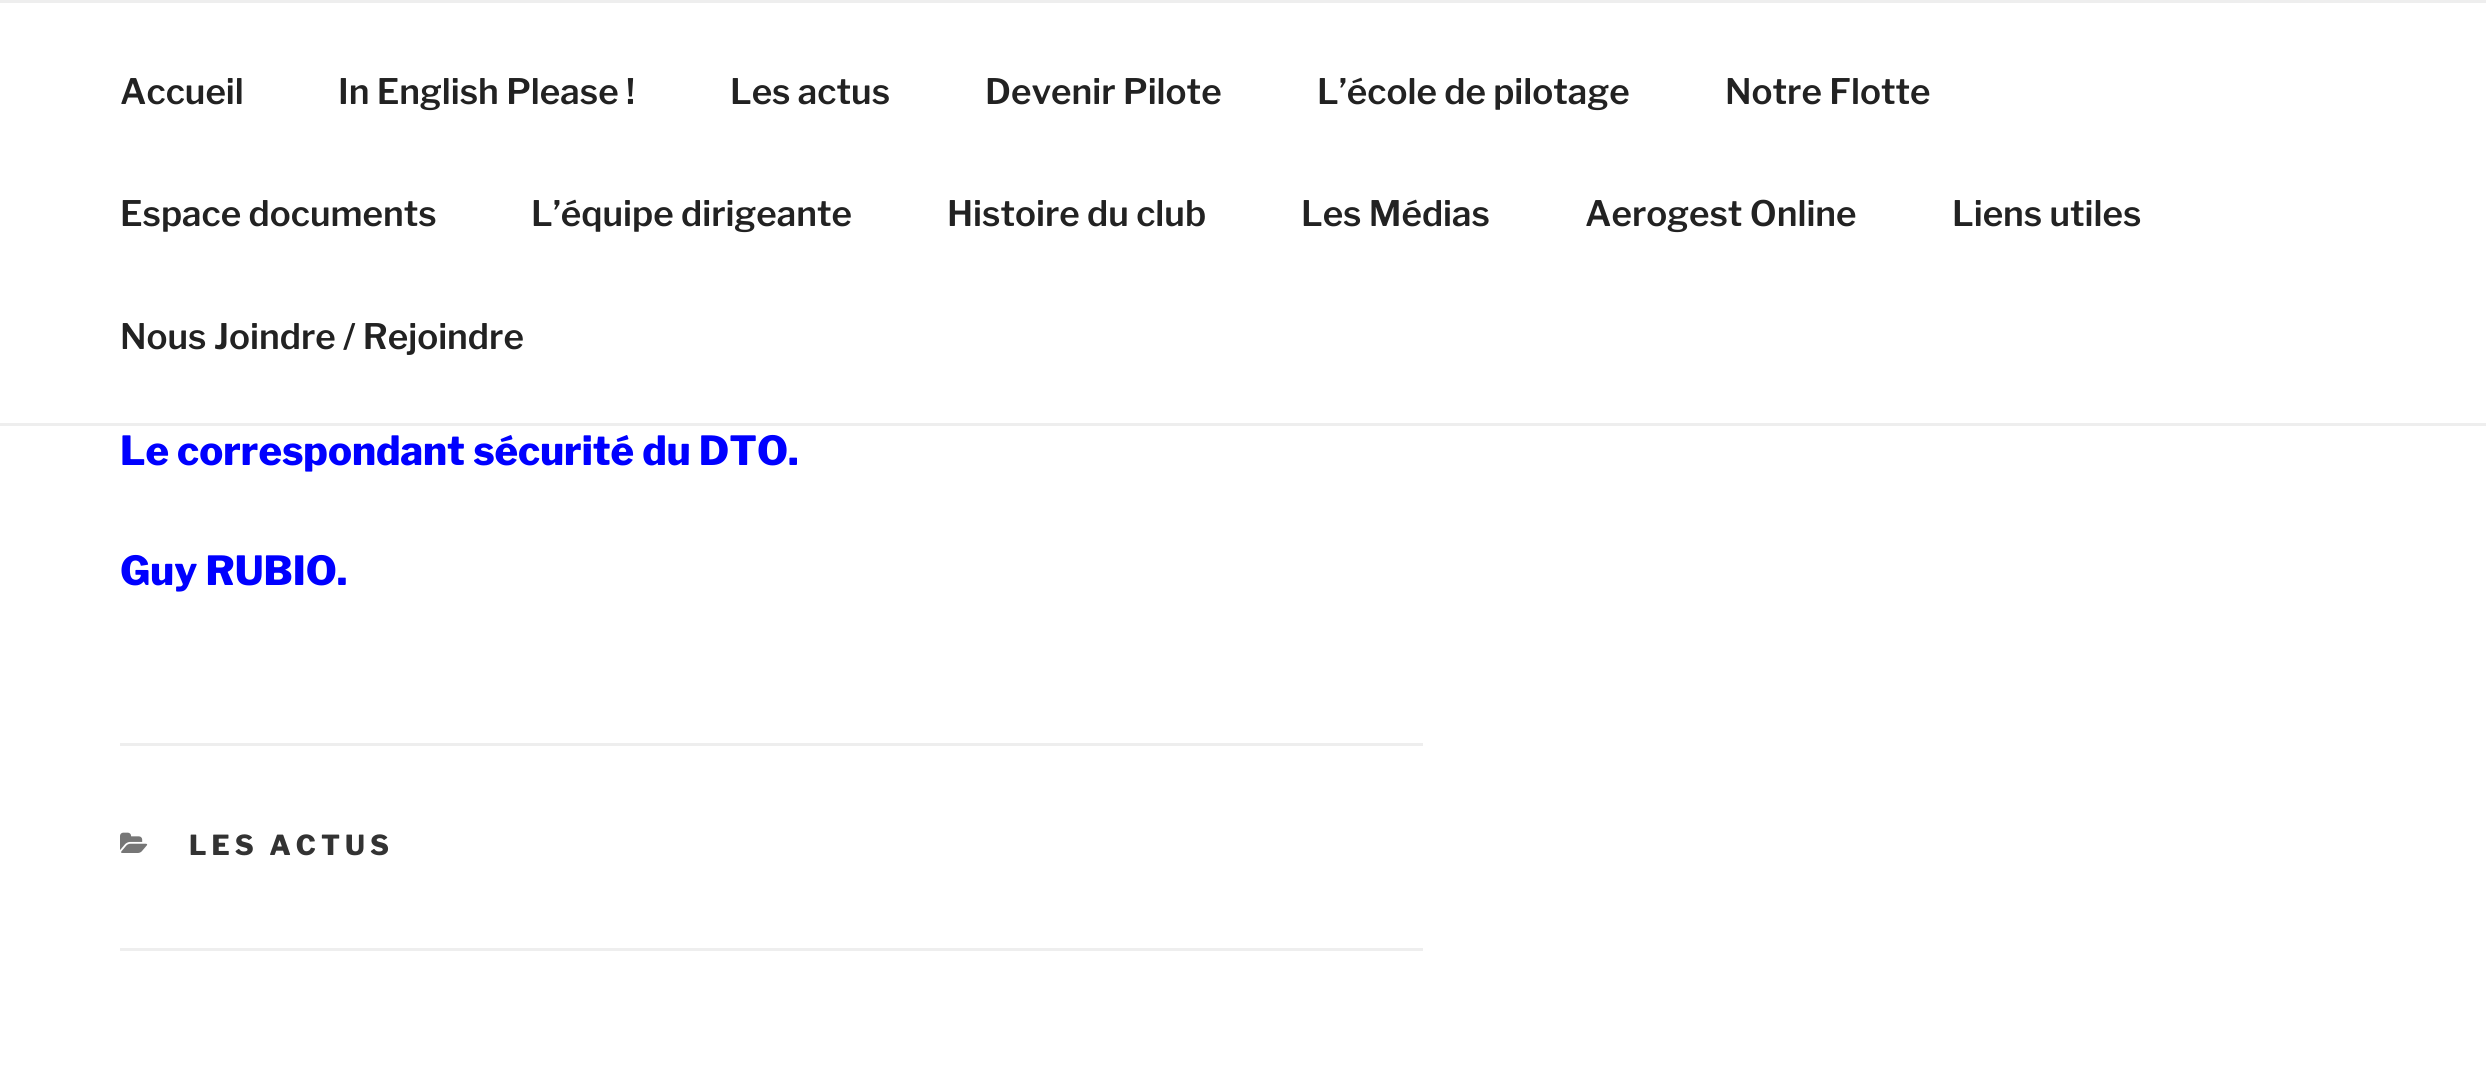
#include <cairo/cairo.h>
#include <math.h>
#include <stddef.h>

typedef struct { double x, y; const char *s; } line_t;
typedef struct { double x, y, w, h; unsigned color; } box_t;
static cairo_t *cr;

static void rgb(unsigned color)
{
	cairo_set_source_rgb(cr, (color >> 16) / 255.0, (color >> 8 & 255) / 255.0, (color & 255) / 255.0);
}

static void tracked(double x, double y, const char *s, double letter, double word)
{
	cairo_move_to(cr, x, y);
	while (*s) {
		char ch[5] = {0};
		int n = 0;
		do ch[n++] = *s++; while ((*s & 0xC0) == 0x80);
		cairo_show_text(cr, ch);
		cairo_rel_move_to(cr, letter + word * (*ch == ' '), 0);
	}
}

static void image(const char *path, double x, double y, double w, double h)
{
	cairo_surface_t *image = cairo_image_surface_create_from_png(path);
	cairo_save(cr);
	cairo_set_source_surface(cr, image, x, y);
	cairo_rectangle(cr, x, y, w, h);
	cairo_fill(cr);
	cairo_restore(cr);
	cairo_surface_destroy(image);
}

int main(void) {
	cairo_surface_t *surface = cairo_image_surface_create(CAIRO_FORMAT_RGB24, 2486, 1081);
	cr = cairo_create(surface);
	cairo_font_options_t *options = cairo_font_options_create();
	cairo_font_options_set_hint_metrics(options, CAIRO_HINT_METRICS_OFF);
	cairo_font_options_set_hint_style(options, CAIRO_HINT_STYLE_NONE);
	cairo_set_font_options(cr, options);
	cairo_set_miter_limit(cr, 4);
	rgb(0xffffff);
	cairo_paint(cr);
	{
		static const box_t items[] = {
			{0, 0, 2486, 3, 0xeeeeee},
			{0, 423, 2486, 3, 0xeeeeee},
			{120, 743, 1303, 3, 0xeeeeee},
			{120, 948, 1303, 3, 0xeeeeee},
		};
		for (size_t i = 0; i < sizeof items / sizeof *items; i++) {
			rgb(items[i].color);
			cairo_rectangle(cr, items[i].x, items[i].y, items[i].w, items[i].h);
			cairo_fill(cr);
		}
	}
	image("img/1.png", 120, 832, 28, 21);
	cairo_select_font_face(cr, "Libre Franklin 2 Thin", CAIRO_FONT_SLANT_NORMAL, CAIRO_FONT_WEIGHT_NORMAL);
	cairo_set_font_size(cr, 35);
	rgb(0x222222);
	{
		static const line_t items[] = {
			{120, 104, "Accueil"},
			{338, 104, "In English Please !"},
			{730, 104, "Les actus"},
			{985, 104, "Devenir Pilote"},
			{1317, 104, "L’école de pilotage"},
			{1725, 104, "Notre Flotte"},
			{120, 226, "Espace documents"},
			{531, 226, "L’équipe dirigeante"},
			{947, 226, "Histoire du club"},
			{1301, 226, "Les Médias"},
			{1585, 226, "Aerogest Online"},
			{1952, 226, "Liens utiles"},
			{120, 349, "Nous Joindre / Rejoindre"},
		};
		for (size_t i = 0; i < sizeof items / sizeof *items; i++) {
			cairo_move_to(cr, items[i].x, items[i].y);
			cairo_show_text(cr, items[i].s);
		}
	}
	cairo_select_font_face(cr, "Libre Franklin Thin", CAIRO_FONT_SLANT_NORMAL, CAIRO_FONT_WEIGHT_NORMAL);
	cairo_set_font_size(cr, 40);
	rgb(0x0000ff);
	cairo_move_to(cr, 120, 465);
	cairo_show_text(cr, "Le correspondant sécurité du DTO.");
	cairo_move_to(cr, 120, 585);
	cairo_show_text(cr, "Guy RUBIO.");
	cairo_set_font_size(cr, 27.5);
	rgb(0x333333);
	tracked(189, 855, "LES ACTUS", 5, 0);
	cairo_surface_write_to_png(surface, "page.png");
	cairo_font_options_destroy(options);
	cairo_destroy(cr);
	cairo_surface_destroy(surface);
	return 0;
}
